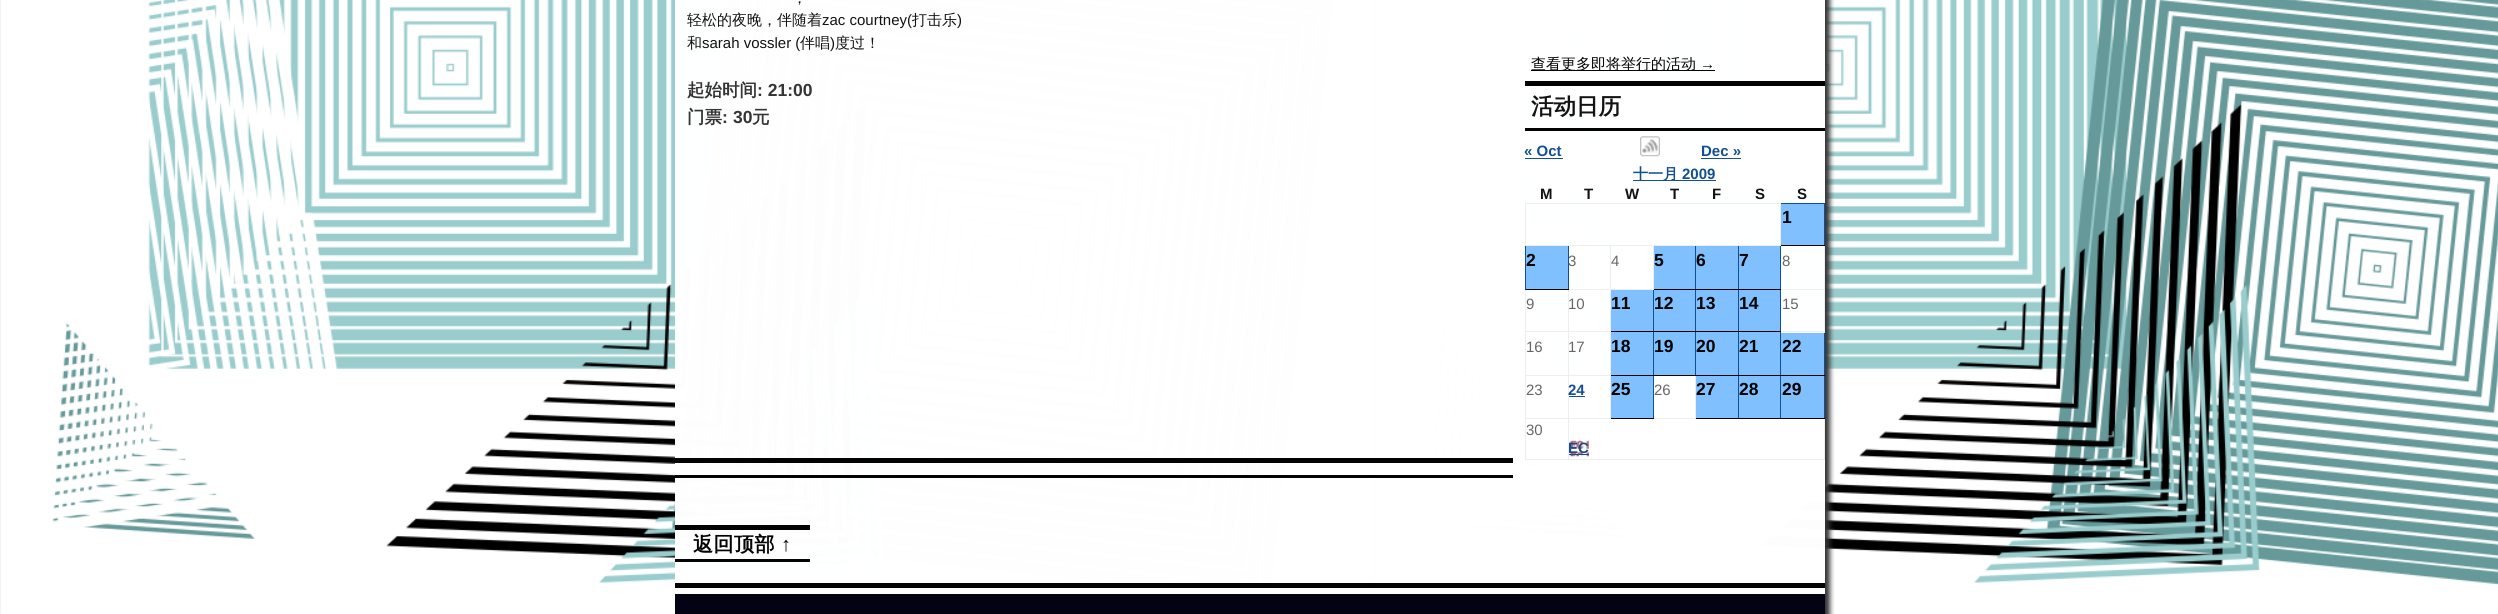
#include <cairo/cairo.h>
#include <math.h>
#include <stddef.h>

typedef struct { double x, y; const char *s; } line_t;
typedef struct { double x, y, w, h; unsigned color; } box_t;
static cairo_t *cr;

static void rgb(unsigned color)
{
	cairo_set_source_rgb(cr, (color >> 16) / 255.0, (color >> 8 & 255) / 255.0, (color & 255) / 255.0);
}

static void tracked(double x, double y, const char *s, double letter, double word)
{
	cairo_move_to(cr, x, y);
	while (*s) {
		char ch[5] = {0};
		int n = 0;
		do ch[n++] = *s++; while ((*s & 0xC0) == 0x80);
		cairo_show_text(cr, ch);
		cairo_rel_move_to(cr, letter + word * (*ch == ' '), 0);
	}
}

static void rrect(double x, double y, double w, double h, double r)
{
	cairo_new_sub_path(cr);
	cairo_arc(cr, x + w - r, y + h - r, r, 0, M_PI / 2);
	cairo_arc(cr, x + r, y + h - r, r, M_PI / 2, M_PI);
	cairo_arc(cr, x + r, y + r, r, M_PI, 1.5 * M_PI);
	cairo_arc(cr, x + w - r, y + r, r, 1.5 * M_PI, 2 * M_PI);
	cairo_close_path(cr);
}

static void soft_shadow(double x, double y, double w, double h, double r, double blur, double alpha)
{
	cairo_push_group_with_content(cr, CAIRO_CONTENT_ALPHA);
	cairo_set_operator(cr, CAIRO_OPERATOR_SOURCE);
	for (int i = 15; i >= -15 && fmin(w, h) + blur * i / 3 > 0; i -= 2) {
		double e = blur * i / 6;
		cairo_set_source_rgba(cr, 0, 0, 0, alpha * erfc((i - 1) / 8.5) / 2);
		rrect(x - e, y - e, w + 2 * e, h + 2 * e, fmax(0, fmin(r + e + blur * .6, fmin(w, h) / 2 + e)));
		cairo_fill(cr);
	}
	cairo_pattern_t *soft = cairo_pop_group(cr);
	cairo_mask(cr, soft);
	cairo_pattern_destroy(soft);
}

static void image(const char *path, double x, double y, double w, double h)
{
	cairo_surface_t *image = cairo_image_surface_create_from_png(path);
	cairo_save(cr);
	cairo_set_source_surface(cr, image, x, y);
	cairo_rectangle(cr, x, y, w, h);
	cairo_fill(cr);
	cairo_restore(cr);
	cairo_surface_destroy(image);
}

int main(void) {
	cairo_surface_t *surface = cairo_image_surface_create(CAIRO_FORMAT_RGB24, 2498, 614);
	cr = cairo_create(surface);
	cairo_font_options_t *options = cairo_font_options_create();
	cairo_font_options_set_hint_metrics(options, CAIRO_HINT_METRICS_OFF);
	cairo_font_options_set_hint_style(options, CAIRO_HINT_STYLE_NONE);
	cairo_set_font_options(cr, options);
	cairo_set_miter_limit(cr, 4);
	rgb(0xffffff);
	cairo_paint(cr);
	image("img/1.png", 0, 0, 2498, 614);
	cairo_save(cr);
	cairo_rectangle(cr, 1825, 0, 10, 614);
	cairo_clip(cr);
	rgb(0x333333);
	soft_shadow(680, -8, 1150, 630, 0, 2.5, 0.99);
	cairo_restore(cr);
	cairo_set_source_rgba(cr, 1, 1, 1, 0.99);
	cairo_rectangle(cr, 675, 0, 1150, 594);
	cairo_fill(cr);
	rgb(0x030303);
	cairo_rectangle(cr, 675, 458, 838, 5);
	cairo_fill(cr);
	cairo_rectangle(cr, 675, 475, 838, 3);
	cairo_fill(cr);
	cairo_rectangle(cr, 1531, 70, 184, 1);
	cairo_fill(cr);
	cairo_rectangle(cr, 1525, 81, 300, 5);
	cairo_fill(cr);
	cairo_rectangle(cr, 1525, 128, 300, 3);
	cairo_fill(cr);
	rgb(0x135090);
	cairo_rectangle(cr, 1525, 158, 38, 1);
	cairo_fill(cr);
	image("img/2.png", 1640, 136, 20, 21);
	cairo_rectangle(cr, 1701, 158, 40, 1);
	cairo_fill(cr);
	cairo_rectangle(cr, 1633, 180, 83, 1);
	cairo_fill(cr);
	cairo_rectangle(cr, 1780, 203, 45, 1);
	cairo_fill(cr);
	rgb(0xeeeeee);
	cairo_rectangle(cr, 1824, 418, 1, 42);
	cairo_fill(cr);
	rgb(0x135090);
	cairo_rectangle(cr, 1824, 375, 1, 44);
	cairo_fill(cr);
	cairo_set_source_rgba(cr, 0.067, 0.306, 0.561, 0.99);
	cairo_rectangle(cr, 1824, 331, 1, 45);
	cairo_fill(cr);
	cairo_set_source_rgba(cr, 0.933, 0.933, 0.933, 0.99);
	cairo_rectangle(cr, 1824, 289, 1, 44);
	cairo_fill(cr);
	cairo_rectangle(cr, 1824, 245, 1, 45);
	cairo_fill(cr);
	cairo_set_source_rgba(cr, 0.067, 0.306, 0.561, 0.99);
	cairo_rectangle(cr, 1824, 203, 1, 43);
	cairo_fill(cr);
	rgb(0x80c0ff);
	cairo_rectangle(cr, 1653, 246, 128, 43);
	cairo_fill(cr);
	cairo_rectangle(cr, 1653, 290, 128, 43);
	cairo_fill(cr);
	cairo_rectangle(cr, 1653, 333, 171, 42);
	cairo_fill(cr);
	rgb(0x030303);
	cairo_rectangle(cr, 1780, 418, 45, 1);
	cairo_fill(cr);
	rgb(0x135090);
	cairo_rectangle(cr, 1780, 375, 1, 44);
	cairo_fill(cr);
	rgb(0x030303);
	cairo_rectangle(cr, 1780, 375, 45, 1);
	cairo_fill(cr);
	cairo_set_source_rgba(cr, 0.067, 0.306, 0.561, 0.99);
	cairo_rectangle(cr, 1780, 331, 1, 45);
	cairo_fill(cr);
	rgb(0xedeeee);
	cairo_rectangle(cr, 1780, 331, 45, 1);
	cairo_fill(cr);
	cairo_set_source_rgba(cr, 0.933, 0.933, 0.933, 0.99);
	cairo_rectangle(cr, 1780, 289, 1, 44);
	cairo_fill(cr);
	cairo_set_source_rgba(cr, 0.067, 0.306, 0.561, 0.99);
	cairo_rectangle(cr, 1780, 289, 1, 44);
	cairo_fill(cr);
	rgb(0xedeeee);
	cairo_rectangle(cr, 1780, 289, 45, 1);
	cairo_fill(cr);
	cairo_set_source_rgba(cr, 0.933, 0.933, 0.933, 0.99);
	cairo_rectangle(cr, 1780, 245, 1, 45);
	cairo_fill(cr);
	rgb(0x135090);
	cairo_rectangle(cr, 1738, 245, 43, 1);
	cairo_fill(cr);
	cairo_set_source_rgba(cr, 0.067, 0.306, 0.561, 0.99);
	cairo_rectangle(cr, 1780, 245, 1, 45);
	cairo_fill(cr);
	rgb(0x030303);
	cairo_rectangle(cr, 1780, 245, 45, 1);
	cairo_fill(cr);
	cairo_set_source_rgba(cr, 0.067, 0.306, 0.561, 0.99);
	cairo_rectangle(cr, 1780, 203, 1, 43);
	cairo_fill(cr);
	cairo_set_source_rgba(cr, 0.933, 0.933, 0.933, 0.99);
	cairo_rectangle(cr, 1525, 203, 256, 1);
	cairo_fill(cr);
	cairo_rectangle(cr, 1780, 203, 1, 43);
	cairo_fill(cr);
	rgb(0x030303);
	cairo_rectangle(cr, 1738, 418, 43, 1);
	cairo_fill(cr);
	rgb(0x135090);
	cairo_rectangle(cr, 1738, 375, 1, 44);
	cairo_fill(cr);
	rgb(0x030303);
	cairo_rectangle(cr, 1738, 375, 43, 1);
	cairo_fill(cr);
	cairo_set_source_rgba(cr, 0.067, 0.306, 0.561, 0.99);
	cairo_rectangle(cr, 1738, 331, 1, 45);
	cairo_fill(cr);
	rgb(0x020202);
	cairo_rectangle(cr, 1738, 331, 43, 1);
	cairo_fill(cr);
	cairo_set_source_rgba(cr, 0.067, 0.306, 0.561, 0.99);
	cairo_rectangle(cr, 1738, 289, 1, 44);
	cairo_fill(cr);
	rgb(0x020202);
	cairo_rectangle(cr, 1738, 289, 43, 1);
	cairo_fill(cr);
	cairo_set_source_rgba(cr, 0.067, 0.306, 0.561, 0.99);
	cairo_rectangle(cr, 1738, 245, 1, 45);
	cairo_fill(cr);
	rgb(0x135090);
	cairo_rectangle(cr, 1695, 245, 44, 1);
	cairo_fill(cr);
	rgb(0x030303);
	cairo_rectangle(cr, 1695, 418, 44, 1);
	cairo_fill(cr);
	rgb(0xeeeeee);
	cairo_rectangle(cr, 1695, 375, 1, 44);
	cairo_fill(cr);
	rgb(0x030303);
	cairo_rectangle(cr, 1695, 375, 44, 1);
	cairo_fill(cr);
	cairo_set_source_rgba(cr, 0.067, 0.306, 0.561, 0.99);
	cairo_rectangle(cr, 1695, 331, 1, 45);
	cairo_fill(cr);
	rgb(0x000101);
	cairo_rectangle(cr, 1695, 331, 44, 1);
	cairo_fill(cr);
	cairo_set_source_rgba(cr, 0.067, 0.306, 0.561, 0.99);
	cairo_rectangle(cr, 1695, 289, 1, 44);
	cairo_fill(cr);
	rgb(0x000101);
	cairo_rectangle(cr, 1695, 289, 44, 1);
	cairo_fill(cr);
	cairo_set_source_rgba(cr, 0.067, 0.306, 0.561, 0.99);
	cairo_rectangle(cr, 1695, 245, 1, 45);
	cairo_fill(cr);
	rgb(0x135090);
	cairo_rectangle(cr, 1653, 245, 43, 1);
	cairo_fill(cr);
	rgb(0x80c0ff);
	cairo_rectangle(cr, 1610, 289, 43, 86);
	cairo_fill(cr);
	rgb(0xeeeeee);
	cairo_rectangle(cr, 1568, 418, 127, 1);
	cairo_fill(cr);
	rgb(0x135090);
	cairo_rectangle(cr, 1653, 375, 1, 44);
	cairo_fill(cr);
	rgb(0x030303);
	cairo_rectangle(cr, 1653, 375, 43, 1);
	cairo_fill(cr);
	cairo_set_source_rgba(cr, 0.067, 0.306, 0.561, 0.99);
	cairo_rectangle(cr, 1653, 331, 1, 45);
	cairo_fill(cr);
	cairo_rectangle(cr, 1610, 331, 44, 1);
	cairo_fill(cr);
	rgb(0x000101);
	cairo_rectangle(cr, 1653, 331, 43, 1);
	cairo_fill(cr);
	cairo_set_source_rgba(cr, 0.067, 0.306, 0.561, 0.99);
	cairo_rectangle(cr, 1653, 289, 1, 44);
	cairo_fill(cr);
	cairo_rectangle(cr, 1610, 289, 44, 1);
	cairo_fill(cr);
	rgb(0x000101);
	cairo_rectangle(cr, 1653, 289, 43, 1);
	cairo_fill(cr);
	cairo_set_source_rgba(cr, 0.067, 0.306, 0.561, 0.99);
	cairo_rectangle(cr, 1653, 245, 1, 45);
	cairo_fill(cr);
	cairo_set_source_rgba(cr, 0.933, 0.933, 0.933, 0.99);
	cairo_rectangle(cr, 1610, 245, 44, 1);
	cairo_fill(cr);
	cairo_rectangle(cr, 1653, 245, 1, 45);
	cairo_fill(cr);
	rgb(0x030303);
	cairo_rectangle(cr, 1610, 418, 44, 1);
	cairo_fill(cr);
	rgb(0xeeeeee);
	cairo_rectangle(cr, 1610, 375, 1, 44);
	cairo_fill(cr);
	rgb(0x030303);
	cairo_rectangle(cr, 1610, 375, 44, 1);
	cairo_fill(cr);
	cairo_set_source_rgba(cr, 0.067, 0.306, 0.561, 0.99);
	cairo_rectangle(cr, 1610, 331, 1, 45);
	cairo_fill(cr);
	cairo_set_source_rgba(cr, 0.933, 0.933, 0.933, 0.99);
	cairo_rectangle(cr, 1610, 331, 1, 45);
	cairo_fill(cr);
	cairo_set_source_rgba(cr, 0, 0, 0, 0.99);
	cairo_rectangle(cr, 1610, 331, 44, 1);
	cairo_fill(cr);
	cairo_set_source_rgba(cr, 0.067, 0.306, 0.561, 0.99);
	cairo_rectangle(cr, 1610, 289, 1, 44);
	cairo_fill(cr);
	cairo_set_source_rgba(cr, 0.933, 0.933, 0.933, 0.99);
	cairo_rectangle(cr, 1568, 289, 43, 1);
	cairo_fill(cr);
	cairo_rectangle(cr, 1610, 289, 1, 44);
	cairo_fill(cr);
	cairo_rectangle(cr, 1610, 289, 44, 1);
	cairo_fill(cr);
	cairo_rectangle(cr, 1610, 245, 1, 45);
	cairo_fill(cr);
	cairo_rectangle(cr, 1568, 245, 43, 1);
	cairo_fill(cr);
	rgb(0xeeeeee);
	cairo_rectangle(cr, 1568, 459, 257, 1);
	cairo_fill(cr);
	cairo_rectangle(cr, 1568, 418, 1, 42);
	cairo_fill(cr);
	cairo_rectangle(cr, 1525, 418, 44, 1);
	cairo_fill(cr);
	cairo_rectangle(cr, 1568, 375, 1, 44);
	cairo_fill(cr);
	cairo_rectangle(cr, 1525, 375, 44, 1);
	cairo_fill(cr);
	cairo_rectangle(cr, 1568, 375, 43, 1);
	cairo_fill(cr);
	cairo_set_source_rgba(cr, 0.933, 0.933, 0.933, 0.99);
	cairo_rectangle(cr, 1568, 331, 1, 45);
	cairo_fill(cr);
	cairo_rectangle(cr, 1525, 331, 44, 1);
	cairo_fill(cr);
	rgb(0xeeeeee);
	cairo_rectangle(cr, 1568, 331, 43, 1);
	cairo_fill(cr);
	cairo_set_source_rgba(cr, 0.933, 0.933, 0.933, 0.99);
	cairo_rectangle(cr, 1568, 289, 1, 44);
	cairo_fill(cr);
	cairo_rectangle(cr, 1525, 289, 44, 1);
	cairo_fill(cr);
	cairo_rectangle(cr, 1568, 245, 1, 45);
	cairo_fill(cr);
	cairo_set_source_rgba(cr, 0.067, 0.306, 0.561, 0.99);
	cairo_rectangle(cr, 1525, 245, 44, 1);
	cairo_fill(cr);
	cairo_rectangle(cr, 1568, 245, 1, 45);
	cairo_fill(cr);
	rgb(0x80c0ff);
	cairo_rectangle(cr, 1525, 246, 43, 43);
	cairo_fill(cr);
	cairo_set_source_rgba(cr, 0.933, 0.933, 0.933, 0.99);
	cairo_rectangle(cr, 1525, 459, 44, 1);
	cairo_fill(cr);
	cairo_rectangle(cr, 1525, 418, 1, 42);
	cairo_fill(cr);
	rgb(0xeeeeee);
	cairo_rectangle(cr, 1525, 375, 1, 44);
	cairo_fill(cr);
	cairo_set_source_rgba(cr, 0.933, 0.933, 0.933, 0.99);
	cairo_rectangle(cr, 1525, 331, 1, 45);
	cairo_fill(cr);
	cairo_rectangle(cr, 1525, 289, 1, 44);
	cairo_fill(cr);
	cairo_set_source_rgba(cr, 0, 0, 0, 0.99);
	cairo_rectangle(cr, 1525, 289, 44, 1);
	cairo_fill(cr);
	cairo_set_source_rgba(cr, 0.067, 0.306, 0.561, 0.99);
	cairo_rectangle(cr, 1525, 245, 1, 45);
	cairo_fill(cr);
	cairo_set_source_rgba(cr, 0.933, 0.933, 0.933, 0.99);
	cairo_rectangle(cr, 1525, 245, 256, 1);
	cairo_fill(cr);
	cairo_rectangle(cr, 1525, 203, 1, 43);
	cairo_fill(cr);
	rgb(0x80c0ff);
	cairo_rectangle(cr, 1781, 204, 43, 41);
	cairo_fill(cr);
	rgb(0x135090);
	cairo_rectangle(cr, 1569, 396, 16, 1);
	cairo_fill(cr);
	rgb(0x80c0ff);
	cairo_rectangle(cr, 1611, 376, 42, 42);
	cairo_fill(cr);
	cairo_rectangle(cr, 1696, 376, 42, 42);
	cairo_fill(cr);
	cairo_rectangle(cr, 1739, 376, 41, 42);
	cairo_fill(cr);
	cairo_rectangle(cr, 1781, 376, 43, 42);
	cairo_fill(cr);
	image("img/3.png", 1570, 440, 19, 17);
	{
		static const box_t items[] = {
			{1569, 454, 20, 1, 0x135090},
			{675, 525, 135, 5, 0x030303},
			{675, 559, 135, 3, 0x030303},
			{675, 583, 1150, 5, 0x030303},
			{675, 594, 1150, 20, 0x030313},
		};
		for (size_t i = 0; i < sizeof items / sizeof *items; i++) {
			rgb(items[i].color);
			cairo_rectangle(cr, items[i].x, items[i].y, items[i].w, items[i].h);
			cairo_fill(cr);
		}
	}
	cairo_select_font_face(cr, "WenQuanYi Zen Hei Medium", CAIRO_FONT_SLANT_NORMAL, CAIRO_FONT_WEIGHT_NORMAL);
	cairo_set_font_size(cr, 15);
	rgb(0x131313);
	cairo_move_to(cr, 792, 3);
	cairo_show_text(cr, "，");
	cairo_move_to(cr, 687, 25);
	cairo_show_text(cr, "轻松的夜晚，伴随着");
	cairo_select_font_face(cr, "Liberation Sans", CAIRO_FONT_SLANT_NORMAL, CAIRO_FONT_WEIGHT_NORMAL);
	cairo_move_to(cr, 822, 25);
	cairo_show_text(cr, "zac courtney(");
	cairo_select_font_face(cr, "WenQuanYi Zen Hei Medium", CAIRO_FONT_SLANT_NORMAL, CAIRO_FONT_WEIGHT_NORMAL);
	cairo_move_to(cr, 912, 25);
	cairo_show_text(cr, "打击乐");
	cairo_select_font_face(cr, "Liberation Sans", CAIRO_FONT_SLANT_NORMAL, CAIRO_FONT_WEIGHT_NORMAL);
	cairo_move_to(cr, 957, 25);
	cairo_show_text(cr, ")");
	cairo_select_font_face(cr, "WenQuanYi Zen Hei Medium", CAIRO_FONT_SLANT_NORMAL, CAIRO_FONT_WEIGHT_NORMAL);
	cairo_move_to(cr, 687, 48);
	cairo_show_text(cr, "和");
	cairo_select_font_face(cr, "Liberation Sans", CAIRO_FONT_SLANT_NORMAL, CAIRO_FONT_WEIGHT_NORMAL);
	cairo_move_to(cr, 702, 48);
	cairo_show_text(cr, "sarah vossler (");
	cairo_select_font_face(cr, "WenQuanYi Zen Hei Medium", CAIRO_FONT_SLANT_NORMAL, CAIRO_FONT_WEIGHT_NORMAL);
	cairo_move_to(cr, 800, 48);
	cairo_show_text(cr, "伴唱");
	cairo_select_font_face(cr, "Liberation Sans", CAIRO_FONT_SLANT_NORMAL, CAIRO_FONT_WEIGHT_NORMAL);
	cairo_move_to(cr, 830, 48);
	cairo_show_text(cr, ")");
	cairo_select_font_face(cr, "WenQuanYi Zen Hei Medium", CAIRO_FONT_SLANT_NORMAL, CAIRO_FONT_WEIGHT_NORMAL);
	cairo_move_to(cr, 835, 48);
	cairo_show_text(cr, "度过！");
	cairo_select_font_face(cr, "WenQuanYi Zen Hei", CAIRO_FONT_SLANT_NORMAL, CAIRO_FONT_WEIGHT_BOLD);
	cairo_set_font_size(cr, 17.5);
	rgb(0x353535);
	cairo_move_to(cr, 687, 96);
	cairo_show_text(cr, "起始时间");
	cairo_select_font_face(cr, "Liberation Sans", CAIRO_FONT_SLANT_NORMAL, CAIRO_FONT_WEIGHT_BOLD);
	cairo_move_to(cr, 757, 96);
	cairo_show_text(cr, ": 21:00");
	cairo_select_font_face(cr, "WenQuanYi Zen Hei", CAIRO_FONT_SLANT_NORMAL, CAIRO_FONT_WEIGHT_BOLD);
	cairo_move_to(cr, 687, 123);
	cairo_show_text(cr, "门票");
	cairo_select_font_face(cr, "Liberation Sans", CAIRO_FONT_SLANT_NORMAL, CAIRO_FONT_WEIGHT_BOLD);
	cairo_move_to(cr, 722, 123);
	cairo_show_text(cr, ":");
	cairo_move_to(cr, 733, 123);
	cairo_show_text(cr, "30");
	cairo_select_font_face(cr, "WenQuanYi Zen Hei", CAIRO_FONT_SLANT_NORMAL, CAIRO_FONT_WEIGHT_BOLD);
	cairo_move_to(cr, 752, 123);
	cairo_show_text(cr, "元");
	cairo_select_font_face(cr, "WenQuanYi Zen Hei Medium", CAIRO_FONT_SLANT_NORMAL, CAIRO_FONT_WEIGHT_NORMAL);
	cairo_set_font_size(cr, 15);
	rgb(0x030303);
	cairo_move_to(cr, 1531, 69);
	cairo_show_text(cr, "查看更多即将举行的活动");
	cairo_select_font_face(cr, "Liberation Sans", CAIRO_FONT_SLANT_NORMAL, CAIRO_FONT_WEIGHT_NORMAL);
	cairo_move_to(cr, 1700, 69);
	cairo_show_text(cr, "→");
	cairo_select_font_face(cr, "WenQuanYi Zen Hei", CAIRO_FONT_SLANT_NORMAL, CAIRO_FONT_WEIGHT_BOLD);
	cairo_set_font_size(cr, 22.5);
	rgb(0x131313);
	cairo_move_to(cr, 1531, 114);
	cairo_show_text(cr, "活动日历");
	cairo_select_font_face(cr, "Liberation Sans", CAIRO_FONT_SLANT_NORMAL, CAIRO_FONT_WEIGHT_BOLD);
	cairo_set_font_size(cr, 15);
	rgb(0x135090);
	cairo_move_to(cr, 1524, 156);
	cairo_show_text(cr, "« Oct");
	cairo_move_to(cr, 1701, 156);
	cairo_show_text(cr, "Dec »");
	cairo_select_font_face(cr, "WenQuanYi Zen Hei", CAIRO_FONT_SLANT_NORMAL, CAIRO_FONT_WEIGHT_BOLD);
	cairo_move_to(cr, 1633, 179);
	cairo_show_text(cr, "十一月");
	cairo_select_font_face(cr, "Liberation Sans", CAIRO_FONT_SLANT_NORMAL, CAIRO_FONT_WEIGHT_BOLD);
	cairo_move_to(cr, 1682, 179);
	cairo_show_text(cr, "2009");
	rgb(0x131313);
	{
		static const line_t items[] = {
			{1540, 199, "M"},
			{1584, 199, "T"},
			{1625, 199, "W"},
			{1670, 199, "T"},
			{1712, 199, "F"},
			{1755, 199, "S"},
			{1797, 199, "S"},
		};
		for (size_t i = 0; i < sizeof items / sizeof *items; i++) {
			cairo_move_to(cr, items[i].x, items[i].y);
			cairo_show_text(cr, items[i].s);
		}
	}
	cairo_set_font_size(cr, 17.5);
	rgb(0x030303);
	cairo_move_to(cr, 1782, 223);
	cairo_show_text(cr, "1");
	cairo_move_to(cr, 1526, 266);
	cairo_show_text(cr, "2");
	cairo_select_font_face(cr, "Liberation Sans", CAIRO_FONT_SLANT_NORMAL, CAIRO_FONT_WEIGHT_NORMAL);
	cairo_set_font_size(cr, 15);
	rgb(0x676768);
	cairo_move_to(cr, 1568, 266);
	cairo_show_text(cr, "3");
	cairo_move_to(cr, 1611, 266);
	cairo_show_text(cr, "4");
	cairo_select_font_face(cr, "Liberation Sans", CAIRO_FONT_SLANT_NORMAL, CAIRO_FONT_WEIGHT_BOLD);
	cairo_set_font_size(cr, 17.5);
	rgb(0x030303);
	{
		static const line_t items[] = {
			{1654, 266, "5"},
			{1696, 266, "6"},
			{1739, 266, "7"},
		};
		for (size_t i = 0; i < sizeof items / sizeof *items; i++) {
			cairo_move_to(cr, items[i].x, items[i].y);
			cairo_show_text(cr, items[i].s);
		}
	}
	cairo_select_font_face(cr, "Liberation Sans", CAIRO_FONT_SLANT_NORMAL, CAIRO_FONT_WEIGHT_NORMAL);
	cairo_set_font_size(cr, 15);
	rgb(0x676768);
	{
		static const line_t items[] = {
			{1782, 266, "8"},
			{1526, 309, "9"},
			{1568, 309, "10"},
		};
		for (size_t i = 0; i < sizeof items / sizeof *items; i++) {
			cairo_move_to(cr, items[i].x, items[i].y);
			cairo_show_text(cr, items[i].s);
		}
	}
	cairo_select_font_face(cr, "Liberation Sans", CAIRO_FONT_SLANT_NORMAL, CAIRO_FONT_WEIGHT_BOLD);
	cairo_set_font_size(cr, 17.5);
	rgb(0x030303);
	{
		static const line_t items[] = {
			{1611, 309, "11"},
			{1654, 309, "12"},
			{1696, 309, "13"},
			{1739, 309, "14"},
		};
		for (size_t i = 0; i < sizeof items / sizeof *items; i++) {
			cairo_move_to(cr, items[i].x, items[i].y);
			cairo_show_text(cr, items[i].s);
		}
	}
	cairo_select_font_face(cr, "Liberation Sans", CAIRO_FONT_SLANT_NORMAL, CAIRO_FONT_WEIGHT_NORMAL);
	cairo_set_font_size(cr, 15);
	rgb(0x676768);
	{
		static const line_t items[] = {
			{1782, 309, "15"},
			{1526, 352, "16"},
			{1568, 352, "17"},
		};
		for (size_t i = 0; i < sizeof items / sizeof *items; i++) {
			cairo_move_to(cr, items[i].x, items[i].y);
			cairo_show_text(cr, items[i].s);
		}
	}
	cairo_select_font_face(cr, "Liberation Sans", CAIRO_FONT_SLANT_NORMAL, CAIRO_FONT_WEIGHT_BOLD);
	cairo_set_font_size(cr, 17.5);
	rgb(0x030303);
	{
		static const line_t items[] = {
			{1611, 352, "18"},
			{1654, 352, "19"},
			{1696, 352, "20"},
			{1739, 352, "21"},
			{1782, 352, "22"},
		};
		for (size_t i = 0; i < sizeof items / sizeof *items; i++) {
			cairo_move_to(cr, items[i].x, items[i].y);
			cairo_show_text(cr, items[i].s);
		}
	}
	cairo_select_font_face(cr, "Liberation Sans", CAIRO_FONT_SLANT_NORMAL, CAIRO_FONT_WEIGHT_NORMAL);
	cairo_set_font_size(cr, 15);
	rgb(0x676768);
	cairo_move_to(cr, 1526, 395);
	cairo_show_text(cr, "23");
	cairo_select_font_face(cr, "Liberation Sans", CAIRO_FONT_SLANT_NORMAL, CAIRO_FONT_WEIGHT_BOLD);
	rgb(0x135090);
	cairo_move_to(cr, 1568, 395);
	cairo_show_text(cr, "24");
	cairo_set_font_size(cr, 17.5);
	rgb(0x030303);
	cairo_move_to(cr, 1611, 395);
	cairo_show_text(cr, "25");
	cairo_select_font_face(cr, "Liberation Sans", CAIRO_FONT_SLANT_NORMAL, CAIRO_FONT_WEIGHT_NORMAL);
	cairo_set_font_size(cr, 15);
	rgb(0x676768);
	cairo_move_to(cr, 1654, 395);
	cairo_show_text(cr, "26");
	cairo_select_font_face(cr, "Liberation Sans", CAIRO_FONT_SLANT_NORMAL, CAIRO_FONT_WEIGHT_BOLD);
	cairo_set_font_size(cr, 17.5);
	rgb(0x030303);
	{
		static const line_t items[] = {
			{1696, 395, "27"},
			{1739, 395, "28"},
			{1782, 395, "29"},
		};
		for (size_t i = 0; i < sizeof items / sizeof *items; i++) {
			cairo_move_to(cr, items[i].x, items[i].y);
			cairo_show_text(cr, items[i].s);
		}
	}
	cairo_select_font_face(cr, "Liberation Sans", CAIRO_FONT_SLANT_NORMAL, CAIRO_FONT_WEIGHT_NORMAL);
	cairo_set_font_size(cr, 15);
	rgb(0x676768);
	cairo_move_to(cr, 1526, 435);
	cairo_show_text(cr, "30");
	cairo_select_font_face(cr, "Liberation Sans", CAIRO_FONT_SLANT_NORMAL, CAIRO_FONT_WEIGHT_BOLD);
	rgb(0x135090);
	cairo_move_to(cr, 1568, 453);
	cairo_show_text(cr, "EC");
	cairo_select_font_face(cr, "WenQuanYi Zen Hei", CAIRO_FONT_SLANT_NORMAL, CAIRO_FONT_WEIGHT_BOLD);
	cairo_set_font_size(cr, 20);
	rgb(0x030303);
	tracked(693, 551, "返回顶部", 0.5, 0);
	cairo_select_font_face(cr, "Liberation Sans", CAIRO_FONT_SLANT_NORMAL, CAIRO_FONT_WEIGHT_BOLD);
	tracked(781, 551, "↑", 0.5, 0);
	cairo_surface_write_to_png(surface, "page.png");
	cairo_font_options_destroy(options);
	cairo_destroy(cr);
	cairo_surface_destroy(surface);
	return 0;
}
